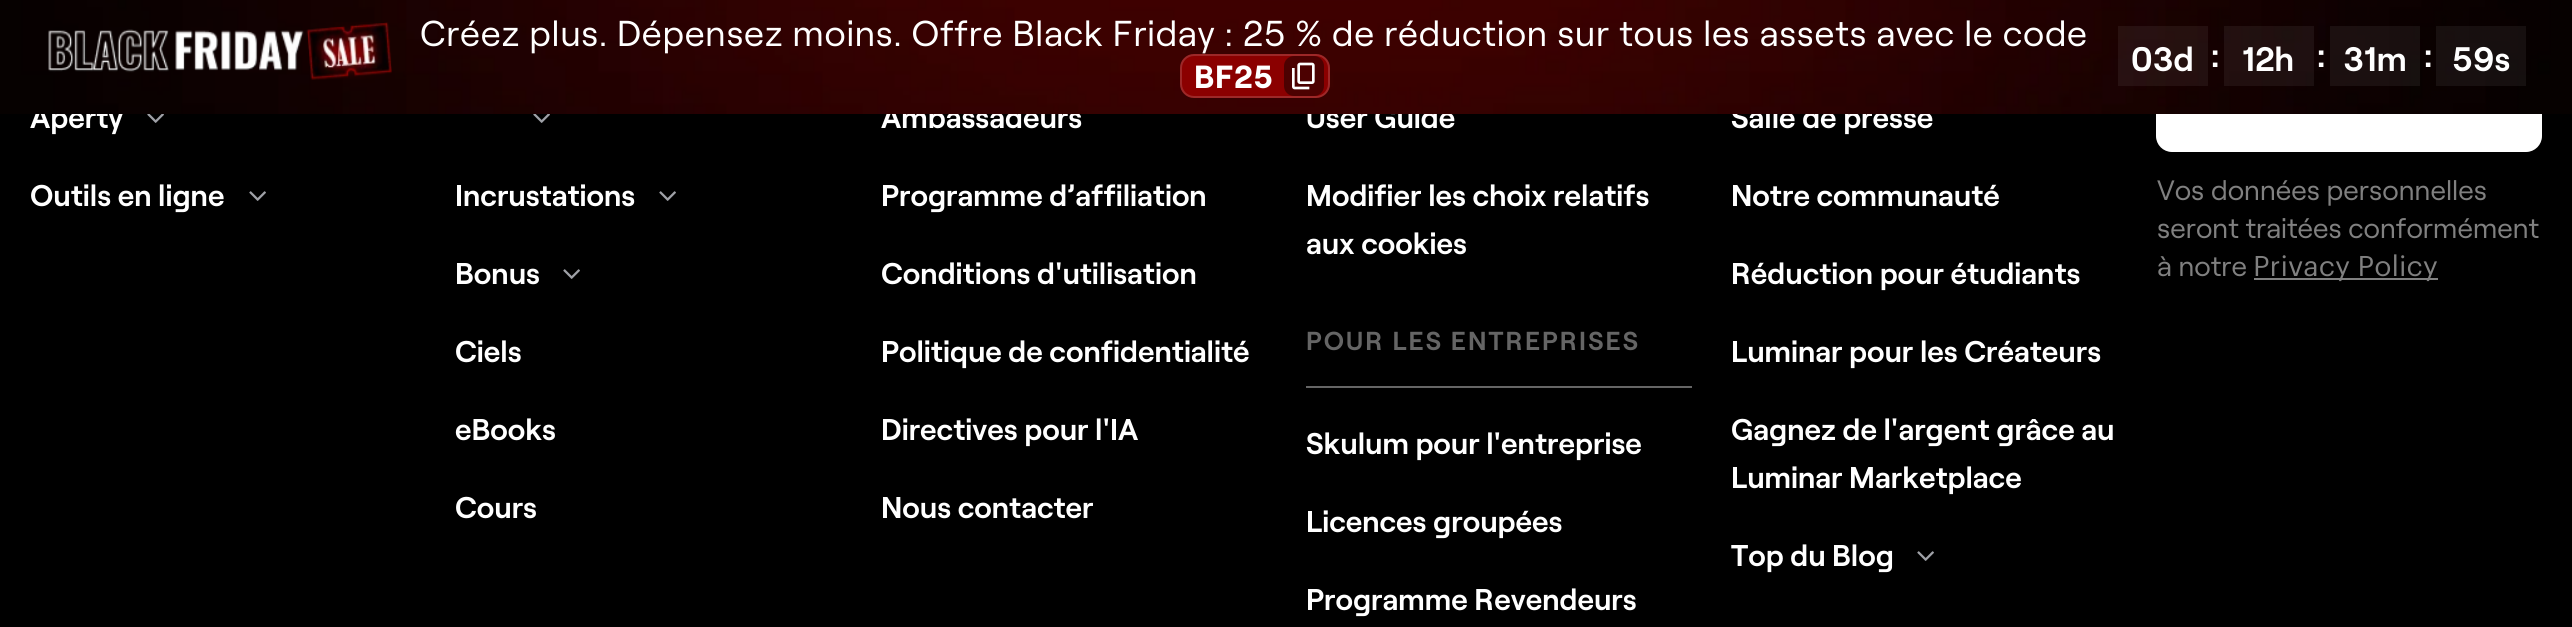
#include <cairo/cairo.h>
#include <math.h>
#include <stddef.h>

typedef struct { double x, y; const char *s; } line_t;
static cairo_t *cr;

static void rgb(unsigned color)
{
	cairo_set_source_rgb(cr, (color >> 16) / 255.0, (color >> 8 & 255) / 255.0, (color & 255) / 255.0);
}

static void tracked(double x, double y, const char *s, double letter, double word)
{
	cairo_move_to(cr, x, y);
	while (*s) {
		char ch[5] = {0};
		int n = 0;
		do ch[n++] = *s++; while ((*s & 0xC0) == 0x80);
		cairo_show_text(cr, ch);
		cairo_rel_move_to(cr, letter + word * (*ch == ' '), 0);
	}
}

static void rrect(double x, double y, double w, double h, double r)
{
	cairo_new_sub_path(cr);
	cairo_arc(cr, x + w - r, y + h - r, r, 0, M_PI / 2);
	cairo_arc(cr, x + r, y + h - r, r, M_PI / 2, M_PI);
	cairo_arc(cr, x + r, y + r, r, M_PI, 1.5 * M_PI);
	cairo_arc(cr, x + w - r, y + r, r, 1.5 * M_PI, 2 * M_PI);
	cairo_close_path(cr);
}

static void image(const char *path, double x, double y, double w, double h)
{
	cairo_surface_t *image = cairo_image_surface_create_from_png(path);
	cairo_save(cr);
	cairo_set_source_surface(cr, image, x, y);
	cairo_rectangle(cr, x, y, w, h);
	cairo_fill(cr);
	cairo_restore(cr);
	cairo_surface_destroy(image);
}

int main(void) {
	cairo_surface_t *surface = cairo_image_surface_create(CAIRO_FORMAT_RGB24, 2572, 627);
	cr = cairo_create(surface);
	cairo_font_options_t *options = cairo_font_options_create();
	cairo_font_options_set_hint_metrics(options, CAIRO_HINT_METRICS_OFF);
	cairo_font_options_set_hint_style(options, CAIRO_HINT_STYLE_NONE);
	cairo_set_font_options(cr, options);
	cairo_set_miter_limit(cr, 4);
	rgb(0x000000);
	cairo_paint(cr);
	image("img/4.png", 147, 114, 17, 9);
	image("img/5.png", 249, 191, 17, 10);
	rgb(0x656565);
	cairo_rectangle(cr, 1306, 386, 386, 2);
	cairo_fill(cr);
	image("img/5.png", 1917, 551, 17, 10);
	image("img/4.png", 533, 114, 17, 9);
	image("img/5.png", 659, 191, 17, 10);
	image("img/5.png", 563, 269, 17, 10);
	rgb(0xffffff);
	rrect(2157, 69, 384, 82, 15);
	cairo_fill_preserve(cr);
	cairo_stroke(cr);
	rgb(0x808080);
	cairo_rectangle(cr, 2254, 278, 184, 2);
	cairo_fill(cr);
	cairo_select_font_face(cr, "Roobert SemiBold", CAIRO_FONT_SLANT_NORMAL, CAIRO_FONT_WEIGHT_NORMAL);
	cairo_set_font_size(cr, 30);
	rgb(0xffffff);
	{
		static const line_t items[] = {
			{30, 128, "Aperty"},
			{30, 206, "Outils en ligne"},
			{881, 128, "Ambassadeurs"},
			{881, 206, "Programme d’affiliation"},
			{881, 284, "Conditions d'utilisation"},
			{881, 362, "Politique de confidentialité"},
			{881, 440, "Directives pour l'IA"},
			{881, 518, "Nous contacter"},
			{1306, 128, "User Guide"},
			{1306, 206, "Modifier les choix relatifs"},
			{1306, 254, "aux cookies"},
		};
		for (size_t i = 0; i < sizeof items / sizeof *items; i++) {
			cairo_move_to(cr, items[i].x, items[i].y);
			cairo_show_text(cr, items[i].s);
		}
	}
	cairo_set_font_size(cr, 26);
	rgb(0x656565);
	tracked(1306, 350, "POUR LES ENTREPRISES", 2.1, 0);
	cairo_set_font_size(cr, 30);
	rgb(0xffffff);
	{
		static const line_t items[] = {
			{1306, 454, "Skulum pour l'entreprise"},
			{1306, 532, "Licences groupées"},
			{1306, 610, "Programme Revendeurs"},
			{1731, 128, "Salle de presse"},
		};
		for (size_t i = 0; i < sizeof items / sizeof *items; i++) {
			cairo_move_to(cr, items[i].x, items[i].y);
			cairo_show_text(cr, items[i].s);
		}
	}
	image("img/1.png", 0, 0, 2572, 114);
	cairo_set_font_size(cr, 34);
	{
		static const line_t items[] = {
			{2424, 67, ":"},
			{2317, 67, ":"},
			{2211, 67, ":"},
		};
		for (size_t i = 0; i < sizeof items / sizeof *items; i++) {
			cairo_move_to(cr, items[i].x, items[i].y);
			cairo_show_text(cr, items[i].s);
		}
	}
	rgb(0x8b0000);
	rrect(1180, 54, 150, 44, 14);
	cairo_fill(cr);
	rrect(1181, 55, 148, 42, 13);
	cairo_set_source_rgba(cr, 1, 1, 1, 0.16);
	cairo_stroke(cr);
	rgb(0x4c0101);
	rrect(1284, 56, 40, 40, 10);
	cairo_fill(cr);
	image("img/3.png", 1292, 62, 23, 28);
	cairo_set_source_rgba(cr, 1, 1, 1, 0.06);
	cairo_rectangle(cr, 2436, 26, 90, 60);
	cairo_fill(cr);
	rgb(0xffffff);
	cairo_move_to(cr, 2452, 71);
	cairo_show_text(cr, "59s");
	cairo_set_source_rgba(cr, 1, 1, 1, 0.06);
	cairo_rectangle(cr, 2330, 26, 90, 60);
	cairo_fill(cr);
	rgb(0xffffff);
	cairo_move_to(cr, 2343, 71);
	cairo_show_text(cr, "31m");
	cairo_set_source_rgba(cr, 1, 1, 1, 0.06);
	cairo_rectangle(cr, 2224, 26, 90, 60);
	cairo_fill(cr);
	rgb(0xffffff);
	cairo_move_to(cr, 2242, 71);
	cairo_show_text(cr, "12h");
	cairo_set_source_rgba(cr, 1, 1, 1, 0.06);
	cairo_rectangle(cr, 2118, 26, 90, 60);
	cairo_fill(cr);
	rgb(0xffffff);
	cairo_move_to(cr, 2131, 71);
	cairo_show_text(cr, "03d");
	cairo_select_font_face(cr, "Roobert", CAIRO_FONT_SLANT_NORMAL, CAIRO_FONT_WEIGHT_BOLD);
	cairo_set_font_size(cr, 32);
	tracked(1194, 88, "BF25", 0.72, 0);
	cairo_select_font_face(cr, "Roobert", CAIRO_FONT_SLANT_NORMAL, CAIRO_FONT_WEIGHT_NORMAL);
	cairo_set_font_size(cr, 36);
	tracked(420, 46, "Créez plus. Dépensez moins. Offre Black Friday : 25 % de réduction sur tous les assets avec le code", 0.72, 0);
	image("img/2.png", 48, 22, 344, 58);
	cairo_select_font_face(cr, "Roobert SemiBold", CAIRO_FONT_SLANT_NORMAL, CAIRO_FONT_WEIGHT_NORMAL);
	cairo_set_font_size(cr, 30);
	{
		static const line_t items[] = {
			{1731, 206, "Notre communauté"},
			{1731, 284, "Réduction pour étudiants"},
			{1731, 362, "Luminar pour les Créateurs"},
			{1731, 440, "Gagnez de l'argent grâce au"},
			{1731, 488, "Luminar Marketplace"},
			{1731, 566, "Top du Blog"},
			{455, 206, "Incrustations"},
			{455, 284, "Bonus"},
			{455, 362, "Ciels"},
			{455, 440, "eBooks"},
			{455, 518, "Cours"},
		};
		for (size_t i = 0; i < sizeof items / sizeof *items; i++) {
			cairo_move_to(cr, items[i].x, items[i].y);
			cairo_show_text(cr, items[i].s);
		}
	}
	cairo_select_font_face(cr, "Roobert", CAIRO_FONT_SLANT_NORMAL, CAIRO_FONT_WEIGHT_NORMAL);
	cairo_set_font_size(cr, 28);
	rgb(0x808080);
	{
		static const line_t items[] = {
			{2157, 200, "Vos données personnelles"},
			{2157, 238, "seront traitées conformément"},
			{2157, 276, "à notre"},
		};
		for (size_t i = 0; i < sizeof items / sizeof *items; i++) {
			cairo_move_to(cr, items[i].x, items[i].y);
			cairo_show_text(cr, items[i].s);
		}
	}
	cairo_select_font_face(cr, "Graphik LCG", CAIRO_FONT_SLANT_NORMAL, CAIRO_FONT_WEIGHT_NORMAL);
	cairo_move_to(cr, 2253, 276);
	cairo_show_text(cr, "Privacy Policy");
	cairo_surface_write_to_png(surface, "page.png");
	cairo_font_options_destroy(options);
	cairo_destroy(cr);
	cairo_surface_destroy(surface);
	return 0;
}
